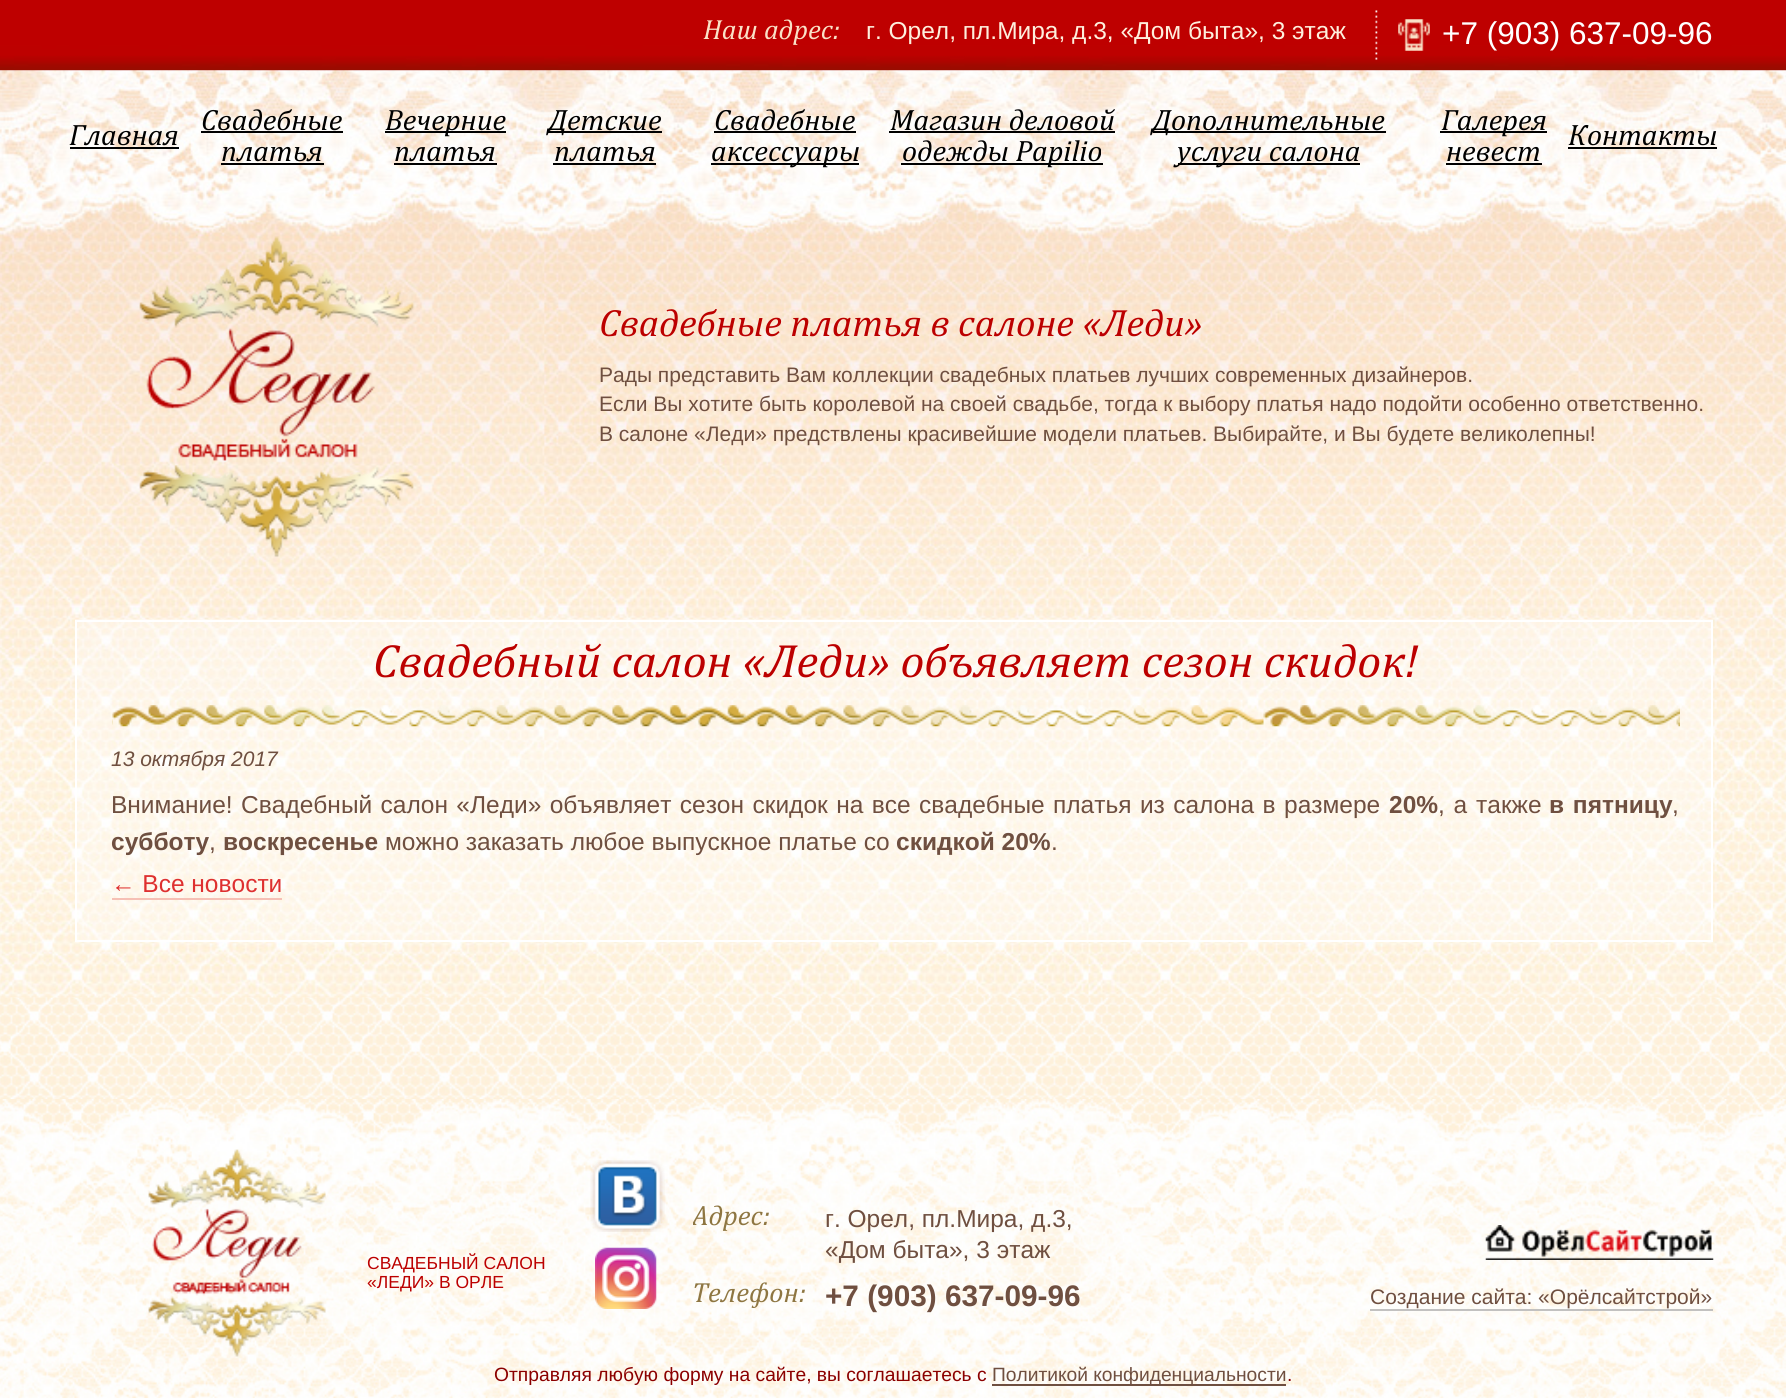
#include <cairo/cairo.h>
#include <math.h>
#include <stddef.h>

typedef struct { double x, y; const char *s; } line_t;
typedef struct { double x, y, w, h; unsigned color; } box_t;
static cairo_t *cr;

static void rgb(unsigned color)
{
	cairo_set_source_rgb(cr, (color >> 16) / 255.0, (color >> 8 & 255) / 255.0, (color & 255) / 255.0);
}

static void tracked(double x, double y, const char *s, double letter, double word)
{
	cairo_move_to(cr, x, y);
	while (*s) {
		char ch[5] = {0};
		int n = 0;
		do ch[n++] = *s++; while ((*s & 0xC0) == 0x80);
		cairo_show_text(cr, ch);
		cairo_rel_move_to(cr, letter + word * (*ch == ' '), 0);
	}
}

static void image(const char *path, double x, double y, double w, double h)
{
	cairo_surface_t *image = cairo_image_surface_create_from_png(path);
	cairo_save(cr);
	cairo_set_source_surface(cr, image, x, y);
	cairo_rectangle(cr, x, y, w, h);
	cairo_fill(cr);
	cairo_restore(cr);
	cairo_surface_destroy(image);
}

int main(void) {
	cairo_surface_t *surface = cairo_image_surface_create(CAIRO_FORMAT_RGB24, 1786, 1398);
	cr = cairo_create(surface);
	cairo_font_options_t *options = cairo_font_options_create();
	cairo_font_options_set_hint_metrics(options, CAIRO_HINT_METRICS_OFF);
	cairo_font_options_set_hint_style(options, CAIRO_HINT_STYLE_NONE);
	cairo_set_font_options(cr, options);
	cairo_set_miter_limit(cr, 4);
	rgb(0xffffff);
	cairo_paint(cr);
	image("img/1.png", 0, 997, 1786, 102);
	image("img/2.png", 0, 0, 1786, 998);
	rgb(0x990c00);
	cairo_rectangle(cr, 0, 69, 1786, 1);
	cairo_fill(cr);
	image("img/3.png", 1375, 10, 3, 50);
	image("img/4.png", 1398, 19, 32, 32);
	{
		static const box_t items[] = {
			{70, 147, 109, 2, 0x000000},
			{201, 131, 142, 2, 0x000000},
			{221, 163, 103, 2, 0x000000},
			{385, 131, 121, 2, 0x000000},
			{394, 163, 103, 2, 0x000000},
			{548, 131, 114, 2, 0x000000},
			{553, 163, 103, 2, 0x000000},
			{714, 131, 142, 2, 0x000000},
			{711, 163, 148, 2, 0x000000},
			{889, 131, 226, 2, 0x000000},
			{901, 163, 202, 2, 0x000000},
			{1153, 131, 233, 2, 0x000000},
			{1178, 163, 182, 2, 0x000000},
			{1440, 131, 107, 2, 0x000000},
			{1446, 163, 96, 2, 0x000000},
			{1568, 147, 149, 2, 0x000000},
		};
		for (size_t i = 0; i < sizeof items / sizeof *items; i++) {
			rgb(items[i].color);
			cairo_rectangle(cr, items[i].x, items[i].y, items[i].w, items[i].h);
			cairo_fill(cr);
		}
	}
	image("img/5.png", 139, 236, 275, 321);
	cairo_set_source_rgba(cr, 1, 1, 1, 0.34);
	cairo_rectangle(cr, 75, 619, 1638, 321);
	cairo_fill(cr);
	cairo_rectangle(cr, 76, 621, 1636, 320);
	rgb(0xffffff);
	cairo_stroke(cr);
	image("img/6.png", 112, 705, 1568, 22);
	rgb(0xf6c0b5);
	cairo_rectangle(cr, 112, 898, 170, 2);
	cairo_fill(cr);
	image("img/7.png", 0, 1099, 1786, 299);
	image("img/8.png", 148, 1149, 178, 208);
	image("img/9.png", 590, 1160, 75, 72);
	image("img/10.png", 595, 1247, 62, 62);
	image("img/11.png", 1485, 1225, 229, 35);
	rgb(0xc2c1c0);
	cairo_rectangle(cr, 1370, 1309, 343, 2);
	cairo_fill(cr);
	rgb(0x6f4f40);
	cairo_rectangle(cr, 992, 1384, 294, 2);
	cairo_fill(cr);
	cairo_select_font_face(cr, "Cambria", CAIRO_FONT_SLANT_ITALIC, CAIRO_FONT_WEIGHT_NORMAL);
	cairo_set_font_size(cr, 28);
	rgb(0xfae1c7);
	cairo_move_to(cr, 703, 39);
	cairo_show_text(cr, "Наш адрес:");
	cairo_select_font_face(cr, "Liberation Sans", CAIRO_FONT_SLANT_NORMAL, CAIRO_FONT_WEIGHT_NORMAL);
	cairo_set_font_size(cr, 24.5);
	rgb(0xfeefdd);
	cairo_move_to(cr, 866, 39);
	cairo_show_text(cr, "г. Орел, пл.Мира, д.3, «Дом быта», 3 этаж");
	cairo_set_font_size(cr, 31.5);
	rgb(0xffffff);
	cairo_move_to(cr, 1442, 44);
	cairo_show_text(cr, "+7 (903) 637-09-96");
	cairo_select_font_face(cr, "Cambria", CAIRO_FONT_SLANT_ITALIC, CAIRO_FONT_WEIGHT_NORMAL);
	cairo_set_font_size(cr, 29.75);
	rgb(0x000000);
	{
		static const line_t items[] = {
			{69, 145, "Главная"},
			{201, 130, "Свадебные"},
			{221, 161, "платья"},
			{385, 130, "Вечерние"},
			{394, 161, "платья"},
			{548, 130, "Детские"},
			{554, 161, "платья"},
			{714, 130, "Свадебные"},
			{711, 161, "аксессуары"},
			{890, 130, "Магазин деловой"},
			{902, 161, "одежды Papilio"},
			{1152, 130, "Дополнительные"},
			{1177, 161, "услуги салона"},
			{1441, 130, "Галерея"},
			{1446, 161, "невест"},
			{1568, 145, "Контакты"},
		};
		for (size_t i = 0; i < sizeof items / sizeof *items; i++) {
			cairo_move_to(cr, items[i].x, items[i].y);
			cairo_show_text(cr, items[i].s);
		}
	}
	cairo_set_font_size(cr, 38.5);
	rgb(0xbc0000);
	cairo_move_to(cr, 599, 336);
	cairo_show_text(cr, "Свадебные платья в салоне «Леди»");
	cairo_select_font_face(cr, "Liberation Sans", CAIRO_FONT_SLANT_NORMAL, CAIRO_FONT_WEIGHT_NORMAL);
	cairo_set_font_size(cr, 21);
	rgb(0x6f4f40);
	{
		static const line_t items[] = {
			{599, 382, "Рады представить Вам коллекции свадебных платьев лучших современных дизайнеров."},
			{599, 411, "Если Вы хотите быть королевой на своей свадьбе, тогда к выбору платья надо подойти особенно ответственно."},
			{599, 441, "В салоне «Леди» предствлены красивейшие модели платьев. Выбирайте, и Вы будете великолепны!"},
		};
		for (size_t i = 0; i < sizeof items / sizeof *items; i++) {
			cairo_move_to(cr, items[i].x, items[i].y);
			cairo_show_text(cr, items[i].s);
		}
	}
	cairo_select_font_face(cr, "Cambria", CAIRO_FONT_SLANT_ITALIC, CAIRO_FONT_WEIGHT_NORMAL);
	cairo_set_font_size(cr, 47.25);
	rgb(0xbc0000);
	cairo_move_to(cr, 373, 677);
	cairo_show_text(cr, "Свадебный салон «Леди» объявляет сезон скидок!");
	cairo_select_font_face(cr, "Liberation Sans", CAIRO_FONT_SLANT_ITALIC, CAIRO_FONT_WEIGHT_NORMAL);
	cairo_set_font_size(cr, 21);
	rgb(0x6f4f40);
	cairo_move_to(cr, 111, 766);
	cairo_show_text(cr, "13 октября 2017");
	cairo_select_font_face(cr, "Liberation Sans", CAIRO_FONT_SLANT_NORMAL, CAIRO_FONT_WEIGHT_NORMAL);
	cairo_set_font_size(cr, 24.5);
	tracked(111, 813, "Внимание! Свадебный салон «Леди» объявляет сезон скидок на все свадебные платья из салона в размере", 0, 1.6);
	cairo_select_font_face(cr, "Liberation Sans", CAIRO_FONT_SLANT_NORMAL, CAIRO_FONT_WEIGHT_BOLD);
	cairo_move_to(cr, 1389, 813);
	cairo_show_text(cr, "20%");
	cairo_select_font_face(cr, "Liberation Sans", CAIRO_FONT_SLANT_NORMAL, CAIRO_FONT_WEIGHT_NORMAL);
	tracked(1438, 813, ", а также", 0, 2);
	cairo_select_font_face(cr, "Liberation Sans", CAIRO_FONT_SLANT_NORMAL, CAIRO_FONT_WEIGHT_BOLD);
	tracked(1549, 813, "в пятницу", 0, 2);
	cairo_select_font_face(cr, "Liberation Sans", CAIRO_FONT_SLANT_NORMAL, CAIRO_FONT_WEIGHT_NORMAL);
	cairo_move_to(cr, 1672, 813);
	cairo_show_text(cr, ",");
	cairo_select_font_face(cr, "Liberation Sans", CAIRO_FONT_SLANT_NORMAL, CAIRO_FONT_WEIGHT_BOLD);
	cairo_move_to(cr, 111, 850);
	cairo_show_text(cr, "субботу");
	cairo_select_font_face(cr, "Liberation Sans", CAIRO_FONT_SLANT_NORMAL, CAIRO_FONT_WEIGHT_NORMAL);
	cairo_move_to(cr, 209, 850);
	cairo_show_text(cr, ",");
	cairo_select_font_face(cr, "Liberation Sans", CAIRO_FONT_SLANT_NORMAL, CAIRO_FONT_WEIGHT_BOLD);
	cairo_move_to(cr, 223, 850);
	cairo_show_text(cr, "воскресенье");
	cairo_select_font_face(cr, "Liberation Sans", CAIRO_FONT_SLANT_NORMAL, CAIRO_FONT_WEIGHT_NORMAL);
	cairo_move_to(cr, 385, 850);
	cairo_show_text(cr, "можно заказать любое выпускное платье со");
	cairo_select_font_face(cr, "Liberation Sans", CAIRO_FONT_SLANT_NORMAL, CAIRO_FONT_WEIGHT_BOLD);
	cairo_move_to(cr, 896, 850);
	cairo_show_text(cr, "скидкой 20%");
	cairo_select_font_face(cr, "Liberation Sans", CAIRO_FONT_SLANT_NORMAL, CAIRO_FONT_WEIGHT_NORMAL);
	cairo_move_to(cr, 1051, 850);
	cairo_show_text(cr, ".");
	rgb(0xde3030);
	cairo_move_to(cr, 111, 892);
	cairo_show_text(cr, "← Все новости");
	cairo_set_font_size(cr, 17.5);
	rgb(0xbc0000);
	cairo_move_to(cr, 367, 1269);
	cairo_show_text(cr, "СВАДЕБНЫЙ САЛОН");
	cairo_move_to(cr, 367, 1288);
	cairo_show_text(cr, "«ЛЕДИ» В ОРЛЕ");
	cairo_save(cr);
	cairo_rectangle(cr, 693, 1202, 389, 63);
	cairo_clip(cr);
	cairo_select_font_face(cr, "Cambria", CAIRO_FONT_SLANT_ITALIC, CAIRO_FONT_WEIGHT_NORMAL);
	cairo_set_font_size(cr, 28);
	rgb(0x8e7642);
	cairo_move_to(cr, 692, 1225);
	cairo_show_text(cr, "Адрес:");
	cairo_restore(cr);
	cairo_set_font_size(cr, 24.5);
	rgb(0x6f4f40);
	cairo_move_to(cr, 825, 1227);
	cairo_show_text(cr, "г. Орел, пл.Мира, д.3,");
	cairo_move_to(cr, 825, 1258);
	cairo_show_text(cr, "«Дом быта», 3 этаж");
	cairo_select_font_face(cr, "Cambria", CAIRO_FONT_SLANT_ITALIC, CAIRO_FONT_WEIGHT_NORMAL);
	cairo_set_font_size(cr, 28);
	rgb(0x8e7642);
	cairo_move_to(cr, 692, 1302);
	cairo_show_text(cr, "Телефон:");
	cairo_select_font_face(cr, "Liberation Sans", CAIRO_FONT_SLANT_NORMAL, CAIRO_FONT_WEIGHT_BOLD);
	cairo_set_font_size(cr, 29.75);
	rgb(0x6f4f40);
	cairo_move_to(cr, 825, 1306);
	cairo_show_text(cr, "+7 (903) 637-09-96");
	cairo_select_font_face(cr, "Liberation Sans", CAIRO_FONT_SLANT_NORMAL, CAIRO_FONT_WEIGHT_NORMAL);
	cairo_set_font_size(cr, 21);
	cairo_move_to(cr, 1370, 1304);
	cairo_show_text(cr, "Создание сайта: «Орёлсайтстрой»");
	cairo_set_font_size(cr, 19.25);
	rgb(0x8b0000);
	cairo_move_to(cr, 494, 1381);
	cairo_show_text(cr, "Отправляя любую форму на сайте, вы соглашаетесь с");
	rgb(0x6f4f40);
	cairo_move_to(cr, 992, 1381);
	cairo_show_text(cr, "Политикой конфиденциальности");
	rgb(0x8b0000);
	cairo_move_to(cr, 1287, 1381);
	cairo_show_text(cr, ".");
	cairo_surface_write_to_png(surface, "page.png");
	cairo_font_options_destroy(options);
	cairo_destroy(cr);
	cairo_surface_destroy(surface);
	return 0;
}
